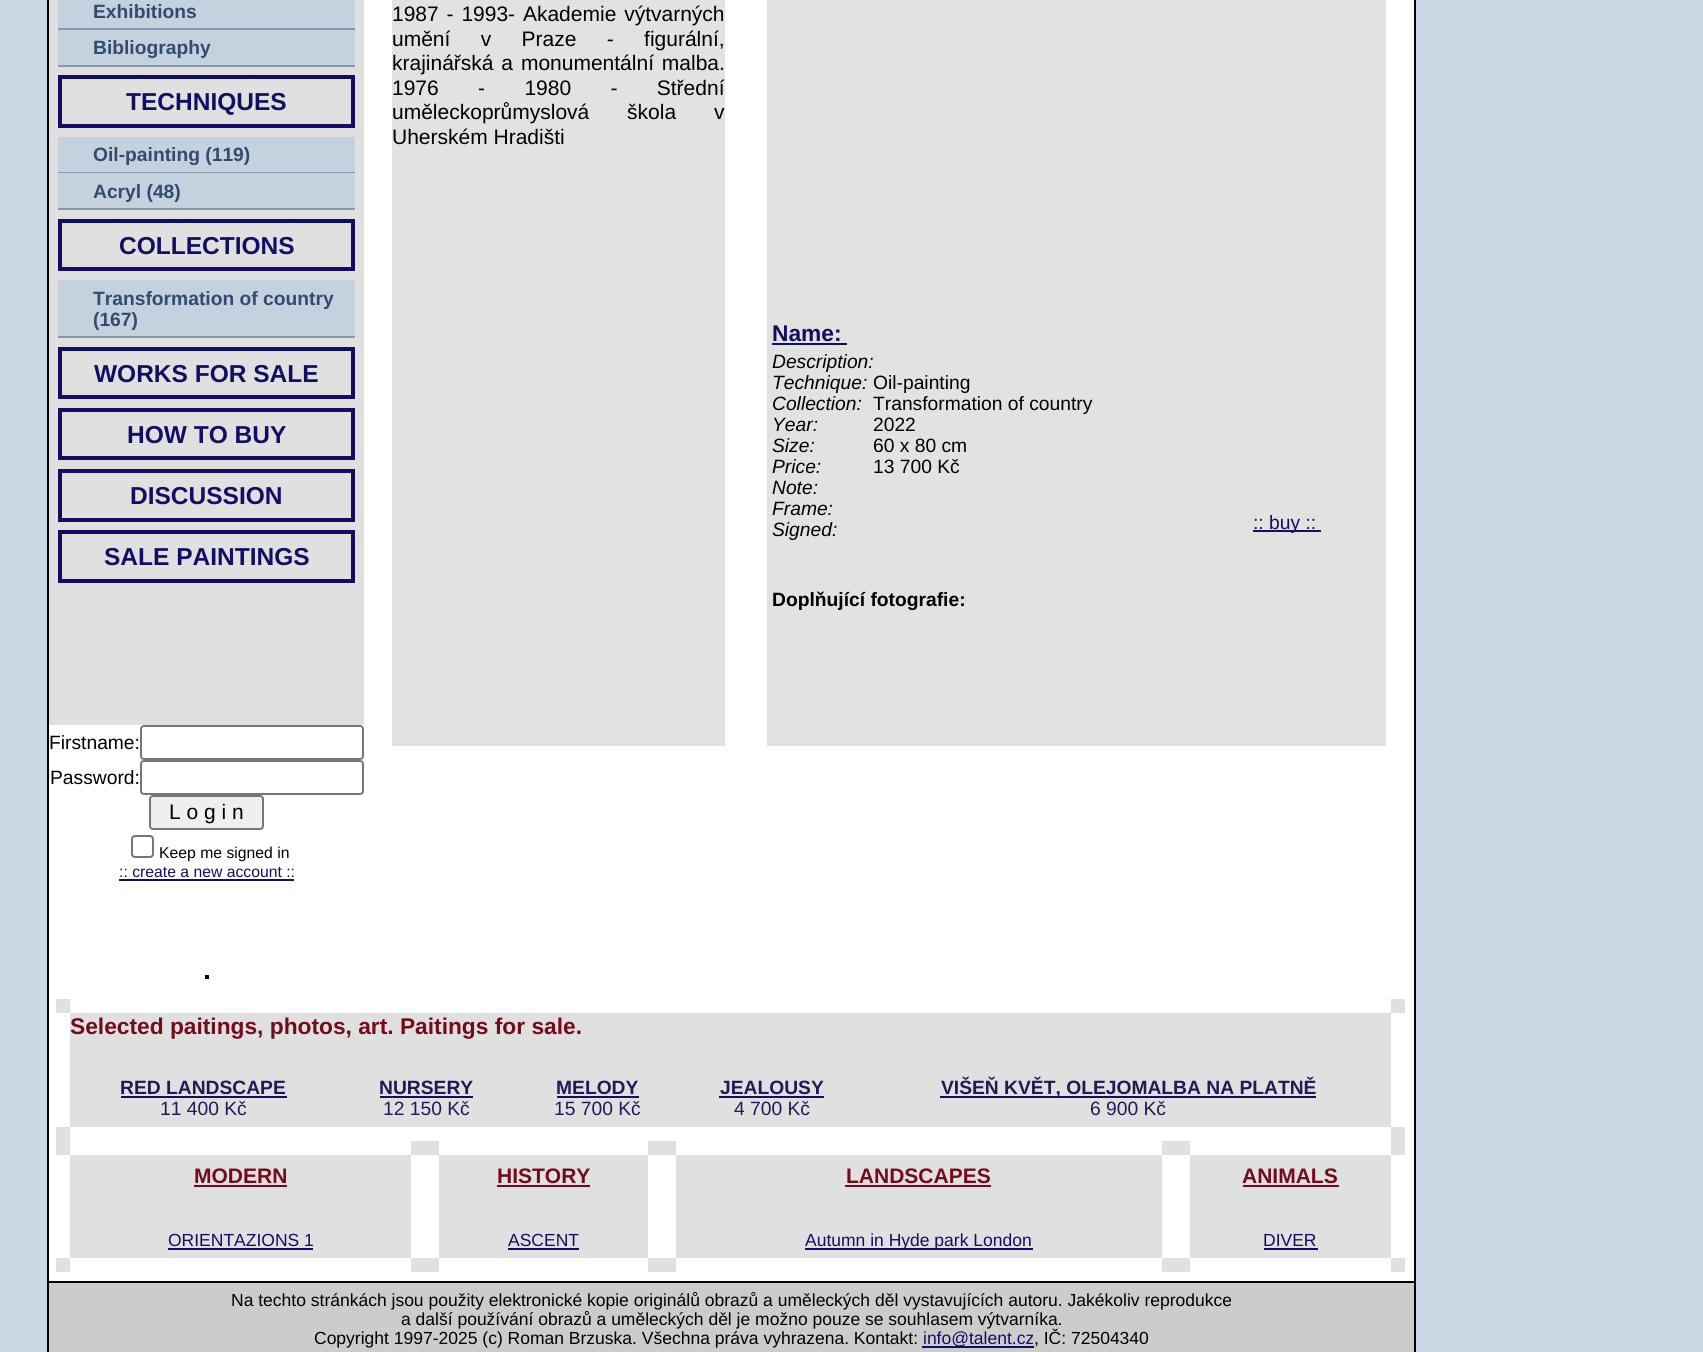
#include <cairo/cairo.h>
#include <math.h>
#include <stddef.h>

typedef struct { double x, y; const char *s; } line_t;
typedef struct { double x, y, w, h; unsigned color; } box_t;
static cairo_t *cr;

static void rgb(unsigned color)
{
	cairo_set_source_rgb(cr, (color >> 16) / 255.0, (color >> 8 & 255) / 255.0, (color & 255) / 255.0);
}

static void tracked(double x, double y, const char *s, double letter, double word)
{
	cairo_move_to(cr, x, y);
	while (*s) {
		char ch[5] = {0};
		int n = 0;
		do ch[n++] = *s++; while ((*s & 0xC0) == 0x80);
		cairo_show_text(cr, ch);
		cairo_rel_move_to(cr, letter + word * (*ch == ' '), 0);
	}
}

static void rrect(double x, double y, double w, double h, double r)
{
	cairo_new_sub_path(cr);
	cairo_arc(cr, x + w - r, y + h - r, r, 0, M_PI / 2);
	cairo_arc(cr, x + r, y + h - r, r, M_PI / 2, M_PI);
	cairo_arc(cr, x + r, y + r, r, M_PI, 1.5 * M_PI);
	cairo_arc(cr, x + w - r, y + r, r, 1.5 * M_PI, 2 * M_PI);
	cairo_close_path(cr);
}

int main(void) {
	cairo_surface_t *surface = cairo_image_surface_create(CAIRO_FORMAT_RGB24, 1703, 1352);
	cr = cairo_create(surface);
	cairo_font_options_t *options = cairo_font_options_create();
	cairo_font_options_set_hint_metrics(options, CAIRO_HINT_METRICS_OFF);
	cairo_font_options_set_hint_style(options, CAIRO_HINT_STYLE_NONE);
	cairo_set_font_options(cr, options);
	cairo_set_miter_limit(cr, 4);
	rgb(0xcbd9e7);
	cairo_paint(cr);
	{
		static const box_t items[] = {
			{49, 0, 1365, 1281, 0xffffff},
			{1414, 0, 2, 1352, 0x000000},
			{47, 0, 2, 1352, 0x000000},
			{49, 0, 315, 725, 0xe0e0e0},
			{58, 0, 297, 28, 0xc4d2df},
			{58, 28, 297, 2, 0x8996ae},
			{58, 30, 297, 35, 0xc4d2df},
			{58, 65, 297, 2, 0x8996ae},
		};
		for (size_t i = 0; i < sizeof items / sizeof *items; i++) {
			rgb(items[i].color);
			cairo_rectangle(cr, items[i].x, items[i].y, items[i].w, items[i].h);
			cairo_fill(cr);
		}
	}
	cairo_rectangle(cr, 60, 77, 293, 49);
	rgb(0x120e62);
	cairo_set_line_width(cr, 4);
	cairo_stroke(cr);
	{
		static const box_t items[] = {
			{58, 137, 297, 35, 0xc4d2df},
			{58, 172, 297, 1, 0x8996ae},
			{58, 173, 297, 35, 0xc4d2df},
			{58, 208, 297, 2, 0x8996ae},
		};
		for (size_t i = 0; i < sizeof items / sizeof *items; i++) {
			rgb(items[i].color);
			cairo_rectangle(cr, items[i].x, items[i].y, items[i].w, items[i].h);
			cairo_fill(cr);
		}
	}
	cairo_rectangle(cr, 60, 221, 293, 48);
	rgb(0x120e62);
	cairo_stroke(cr);
	rgb(0xc4d2df);
	cairo_rectangle(cr, 58, 280, 297, 56);
	cairo_fill(cr);
	rgb(0x8996ae);
	cairo_rectangle(cr, 58, 336, 297, 2);
	cairo_fill(cr);
	cairo_rectangle(cr, 60, 349, 293, 48);
	rgb(0x120e62);
	cairo_stroke(cr);
	cairo_rectangle(cr, 60, 410, 293, 48);
	cairo_stroke(cr);
	cairo_rectangle(cr, 60, 471, 293, 49);
	cairo_stroke(cr);
	cairo_rectangle(cr, 60, 532, 293, 49);
	cairo_stroke(cr);
	rrect(141, 726, 222, 33, 3);
	rgb(0x767676);
	cairo_set_line_width(cr, 2);
	cairo_stroke(cr);
	rrect(141, 761, 222, 33, 3);
	cairo_stroke(cr);
	rgb(0xefefef);
	rrect(150, 796, 113, 33, 3);
	cairo_fill_preserve(cr);
	rgb(0x767676);
	cairo_stroke(cr);
	rrect(132, 836, 21, 21, 3);
	cairo_stroke(cr);
	{
		static const box_t items[] = {
			{119, 879, 175, 2, 0x120e62},
			{205, 975, 4, 4, 0x000000},
			{392, 0, 333, 746, 0xe2e2e1},
			{767, 0, 619, 746, 0xe2e2e1},
			{772, 343, 75, 2, 0x120e62},
			{1253, 530, 68, 2, 0x120e62},
			{56, 999, 14, 14, 0xe0e0e0},
			{1391, 999, 14, 14, 0xe0e0e0},
			{70, 1013, 1321, 27, 0xe0e0e0},
			{70, 1040, 1321, 87, 0xe0e0e0},
			{121, 1096, 166, 2, 0x120e62},
			{380, 1096, 93, 2, 0x120e62},
			{557, 1096, 82, 2, 0x120e62},
			{719, 1096, 105, 2, 0x120e62},
			{940, 1096, 376, 2, 0x120e62},
			{56, 1127, 14, 28, 0xe0e0e0},
			{1391, 1127, 14, 28, 0xe0e0e0},
			{411, 1141, 28, 14, 0xe0e0e0},
			{648, 1141, 28, 14, 0xe0e0e0},
			{1162, 1141, 28, 14, 0xe0e0e0},
			{70, 1155, 341, 103, 0xe0e0e0},
			{194, 1185, 93, 2, 0x720c1c},
			{168, 1248, 145, 2, 0x120e62},
			{439, 1155, 209, 103, 0xe0e0e0},
			{497, 1185, 93, 2, 0x720c1c},
			{508, 1248, 71, 2, 0x120e62},
			{676, 1155, 486, 103, 0xe0e0e0},
			{845, 1185, 146, 2, 0x720c1c},
			{805, 1248, 228, 2, 0x120e62},
			{1190, 1155, 201, 103, 0xe0e0e0},
			{1243, 1185, 96, 2, 0x720c1c},
			{1264, 1248, 54, 2, 0x120e62},
			{56, 1258, 14, 14, 0xe0e0e0},
			{411, 1258, 28, 14, 0xe0e0e0},
			{648, 1258, 28, 14, 0xe0e0e0},
			{1162, 1258, 28, 14, 0xe0e0e0},
			{1391, 1258, 14, 14, 0xe0e0e0},
			{49, 1283, 1365, 69, 0xcccccc},
			{49, 1281, 1365, 2, 0x000000},
			{922, 1346, 112, 2, 0x120e62},
		};
		for (size_t i = 0; i < sizeof items / sizeof *items; i++) {
			rgb(items[i].color);
			cairo_rectangle(cr, items[i].x, items[i].y, items[i].w, items[i].h);
			cairo_fill(cr);
		}
	}
	cairo_select_font_face(cr, "Liberation Sans", CAIRO_FONT_SLANT_NORMAL, CAIRO_FONT_WEIGHT_BOLD);
	cairo_set_font_size(cr, 19.25);
	rgb(0x324b6e);
	cairo_move_to(cr, 93, 18);
	cairo_show_text(cr, "Exhibitions");
	cairo_move_to(cr, 93, 54);
	cairo_show_text(cr, "Bibliography");
	cairo_set_font_size(cr, 24.5);
	rgb(0x120e62);
	cairo_move_to(cr, 126, 110);
	cairo_show_text(cr, "TECHNIQUES");
	cairo_set_font_size(cr, 19.25);
	rgb(0x324b6e);
	cairo_move_to(cr, 93, 161);
	cairo_show_text(cr, "Oil-painting (119)");
	cairo_move_to(cr, 93, 198);
	cairo_show_text(cr, "Acryl (48)");
	cairo_set_font_size(cr, 24.5);
	rgb(0x120e62);
	cairo_move_to(cr, 119, 254);
	cairo_show_text(cr, "COLLECTIONS");
	cairo_set_font_size(cr, 19.25);
	rgb(0x324b6e);
	cairo_move_to(cr, 93, 305);
	cairo_show_text(cr, "Transformation of country");
	cairo_move_to(cr, 93, 326);
	cairo_show_text(cr, "(167)");
	cairo_set_font_size(cr, 24.5);
	rgb(0x120e62);
	{
		static const line_t items[] = {
			{94, 382, "WORKS FOR SALE"},
			{127, 443, "HOW TO BUY"},
			{130, 504, "DISCUSSION"},
			{104, 565, "SALE PAINTINGS"},
		};
		for (size_t i = 0; i < sizeof items / sizeof *items; i++) {
			cairo_move_to(cr, items[i].x, items[i].y);
			cairo_show_text(cr, items[i].s);
		}
	}
	cairo_select_font_face(cr, "Liberation Sans", CAIRO_FONT_SLANT_NORMAL, CAIRO_FONT_WEIGHT_NORMAL);
	cairo_set_font_size(cr, 19.25);
	rgb(0x000000);
	cairo_move_to(cr, 49, 749);
	cairo_show_text(cr, "Firstname:");
	cairo_move_to(cr, 50, 784);
	cairo_show_text(cr, "Password:");
	cairo_set_font_size(cr, 21);
	cairo_move_to(cr, 169, 819);
	cairo_show_text(cr, "L o g i n");
	cairo_set_font_size(cr, 15.75);
	cairo_move_to(cr, 159, 858);
	cairo_show_text(cr, "Keep me signed in");
	rgb(0x120e62);
	cairo_move_to(cr, 119, 877);
	cairo_show_text(cr, ":: create a new account ::");
	cairo_set_font_size(cr, 21);
	rgb(0x000000);
	tracked(392, 21, "1987 - 1993- Akademie výtvarných", 0, 2);
	tracked(392, 46, "umění v Praze - figurální,", 0, 24.5);
	tracked(392, 70, "krajinářská a monumentální malba.", 0, 2);
	tracked(392, 95, "1976 - 1980 - Střední", 0, 33.5);
	tracked(392, 119, "uměleckoprůmyslová škola v", 0, 32);
	cairo_move_to(cr, 392, 144);
	cairo_show_text(cr, "Uherském Hradišti");
	cairo_select_font_face(cr, "Liberation Sans", CAIRO_FONT_SLANT_NORMAL, CAIRO_FONT_WEIGHT_BOLD);
	cairo_set_font_size(cr, 22.75);
	rgb(0x120e62);
	cairo_move_to(cr, 772, 341);
	cairo_show_text(cr, "Name:");
	cairo_select_font_face(cr, "Liberation Sans", CAIRO_FONT_SLANT_ITALIC, CAIRO_FONT_WEIGHT_NORMAL);
	cairo_set_font_size(cr, 19.25);
	rgb(0x000000);
	cairo_move_to(cr, 772, 368);
	cairo_show_text(cr, "Description:");
	cairo_move_to(cr, 772, 389);
	cairo_show_text(cr, "Technique:");
	cairo_select_font_face(cr, "Liberation Sans", CAIRO_FONT_SLANT_NORMAL, CAIRO_FONT_WEIGHT_NORMAL);
	cairo_move_to(cr, 873, 389);
	cairo_show_text(cr, "Oil-painting");
	cairo_select_font_face(cr, "Liberation Sans", CAIRO_FONT_SLANT_ITALIC, CAIRO_FONT_WEIGHT_NORMAL);
	cairo_move_to(cr, 772, 410);
	cairo_show_text(cr, "Collection:");
	cairo_select_font_face(cr, "Liberation Sans", CAIRO_FONT_SLANT_NORMAL, CAIRO_FONT_WEIGHT_NORMAL);
	cairo_move_to(cr, 873, 410);
	cairo_show_text(cr, "Transformation of country");
	cairo_select_font_face(cr, "Liberation Sans", CAIRO_FONT_SLANT_ITALIC, CAIRO_FONT_WEIGHT_NORMAL);
	cairo_move_to(cr, 772, 431);
	cairo_show_text(cr, "Year:");
	cairo_select_font_face(cr, "Liberation Sans", CAIRO_FONT_SLANT_NORMAL, CAIRO_FONT_WEIGHT_NORMAL);
	cairo_move_to(cr, 873, 431);
	cairo_show_text(cr, "2022");
	cairo_select_font_face(cr, "Liberation Sans", CAIRO_FONT_SLANT_ITALIC, CAIRO_FONT_WEIGHT_NORMAL);
	cairo_move_to(cr, 772, 452);
	cairo_show_text(cr, "Size:");
	cairo_select_font_face(cr, "Liberation Sans", CAIRO_FONT_SLANT_NORMAL, CAIRO_FONT_WEIGHT_NORMAL);
	cairo_move_to(cr, 873, 452);
	cairo_show_text(cr, "60 x 80 cm");
	cairo_select_font_face(cr, "Liberation Sans", CAIRO_FONT_SLANT_ITALIC, CAIRO_FONT_WEIGHT_NORMAL);
	cairo_move_to(cr, 772, 473);
	cairo_show_text(cr, "Price:");
	cairo_select_font_face(cr, "Liberation Sans", CAIRO_FONT_SLANT_NORMAL, CAIRO_FONT_WEIGHT_NORMAL);
	cairo_move_to(cr, 873, 473);
	cairo_show_text(cr, "13 700 Kč");
	cairo_select_font_face(cr, "Liberation Sans", CAIRO_FONT_SLANT_ITALIC, CAIRO_FONT_WEIGHT_NORMAL);
	{
		static const line_t items[] = {
			{772, 494, "Note:"},
			{772, 515, "Frame:"},
			{772, 536, "Signed:"},
		};
		for (size_t i = 0; i < sizeof items / sizeof *items; i++) {
			cairo_move_to(cr, items[i].x, items[i].y);
			cairo_show_text(cr, items[i].s);
		}
	}
	cairo_select_font_face(cr, "Liberation Sans", CAIRO_FONT_SLANT_NORMAL, CAIRO_FONT_WEIGHT_NORMAL);
	rgb(0x120e62);
	cairo_move_to(cr, 1253, 529);
	cairo_show_text(cr, ":: buy ::");
	cairo_select_font_face(cr, "Liberation Sans", CAIRO_FONT_SLANT_NORMAL, CAIRO_FONT_WEIGHT_BOLD);
	rgb(0x000000);
	cairo_move_to(cr, 772, 606);
	cairo_show_text(cr, "Doplňující fotografie:");
	cairo_set_font_size(cr, 22.75);
	rgb(0x720c1c);
	cairo_move_to(cr, 70, 1034);
	cairo_show_text(cr, "Selected paitings, photos, art. Paitings for sale.");
	cairo_set_font_size(cr, 19.25);
	rgb(0x1e1b55);
	cairo_move_to(cr, 120, 1094);
	cairo_show_text(cr, "RED LANDSCAPE");
	cairo_select_font_face(cr, "Liberation Sans", CAIRO_FONT_SLANT_NORMAL, CAIRO_FONT_WEIGHT_NORMAL);
	cairo_move_to(cr, 160, 1115);
	cairo_show_text(cr, "11 400 Kč");
	cairo_select_font_face(cr, "Liberation Sans", CAIRO_FONT_SLANT_NORMAL, CAIRO_FONT_WEIGHT_BOLD);
	cairo_move_to(cr, 379, 1094);
	cairo_show_text(cr, "NURSERY");
	cairo_select_font_face(cr, "Liberation Sans", CAIRO_FONT_SLANT_NORMAL, CAIRO_FONT_WEIGHT_NORMAL);
	cairo_move_to(cr, 383, 1115);
	cairo_show_text(cr, "12 150 Kč");
	cairo_select_font_face(cr, "Liberation Sans", CAIRO_FONT_SLANT_NORMAL, CAIRO_FONT_WEIGHT_BOLD);
	cairo_move_to(cr, 556, 1094);
	cairo_show_text(cr, "MELODY");
	cairo_select_font_face(cr, "Liberation Sans", CAIRO_FONT_SLANT_NORMAL, CAIRO_FONT_WEIGHT_NORMAL);
	cairo_move_to(cr, 554, 1115);
	cairo_show_text(cr, "15 700 Kč");
	cairo_select_font_face(cr, "Liberation Sans", CAIRO_FONT_SLANT_NORMAL, CAIRO_FONT_WEIGHT_BOLD);
	cairo_move_to(cr, 720, 1094);
	cairo_show_text(cr, "JEALOUSY");
	cairo_select_font_face(cr, "Liberation Sans", CAIRO_FONT_SLANT_NORMAL, CAIRO_FONT_WEIGHT_NORMAL);
	cairo_move_to(cr, 734, 1115);
	cairo_show_text(cr, "4 700 Kč");
	cairo_select_font_face(cr, "Liberation Sans", CAIRO_FONT_SLANT_NORMAL, CAIRO_FONT_WEIGHT_BOLD);
	cairo_move_to(cr, 941, 1094);
	cairo_show_text(cr, "VIŠEŇ KVĚT, OLEJOMALBA NA PLATNĚ");
	cairo_select_font_face(cr, "Liberation Sans", CAIRO_FONT_SLANT_NORMAL, CAIRO_FONT_WEIGHT_NORMAL);
	cairo_move_to(cr, 1090, 1115);
	cairo_show_text(cr, "6 900 Kč");
	cairo_select_font_face(cr, "Liberation Sans", CAIRO_FONT_SLANT_NORMAL, CAIRO_FONT_WEIGHT_BOLD);
	cairo_set_font_size(cr, 21);
	rgb(0x720c1c);
	cairo_move_to(cr, 194, 1183);
	cairo_show_text(cr, "MODERN");
	cairo_select_font_face(cr, "Liberation Sans", CAIRO_FONT_SLANT_NORMAL, CAIRO_FONT_WEIGHT_NORMAL);
	cairo_set_font_size(cr, 17.5);
	rgb(0x120e62);
	cairo_move_to(cr, 168, 1246);
	cairo_show_text(cr, "ORIENTAZIONS 1");
	cairo_select_font_face(cr, "Liberation Sans", CAIRO_FONT_SLANT_NORMAL, CAIRO_FONT_WEIGHT_BOLD);
	cairo_set_font_size(cr, 21);
	rgb(0x720c1c);
	cairo_move_to(cr, 497, 1183);
	cairo_show_text(cr, "HISTORY");
	cairo_select_font_face(cr, "Liberation Sans", CAIRO_FONT_SLANT_NORMAL, CAIRO_FONT_WEIGHT_NORMAL);
	cairo_set_font_size(cr, 17.5);
	rgb(0x120e62);
	cairo_move_to(cr, 508, 1246);
	cairo_show_text(cr, "ASCENT");
	cairo_select_font_face(cr, "Liberation Sans", CAIRO_FONT_SLANT_NORMAL, CAIRO_FONT_WEIGHT_BOLD);
	cairo_set_font_size(cr, 21);
	rgb(0x720c1c);
	cairo_move_to(cr, 846, 1183);
	cairo_show_text(cr, "LANDSCAPES");
	cairo_select_font_face(cr, "Liberation Sans", CAIRO_FONT_SLANT_NORMAL, CAIRO_FONT_WEIGHT_NORMAL);
	cairo_set_font_size(cr, 17.5);
	rgb(0x120e62);
	cairo_move_to(cr, 805, 1246);
	cairo_show_text(cr, "Autumn in Hyde park London");
	cairo_select_font_face(cr, "Liberation Sans", CAIRO_FONT_SLANT_NORMAL, CAIRO_FONT_WEIGHT_BOLD);
	cairo_set_font_size(cr, 21);
	rgb(0x720c1c);
	cairo_move_to(cr, 1242, 1183);
	cairo_show_text(cr, "ANIMALS");
	cairo_select_font_face(cr, "Liberation Sans", CAIRO_FONT_SLANT_NORMAL, CAIRO_FONT_WEIGHT_NORMAL);
	cairo_set_font_size(cr, 17.5);
	rgb(0x120e62);
	cairo_move_to(cr, 1263, 1246);
	cairo_show_text(cr, "DIVER");
	rgb(0x000000);
	{
		static const line_t items[] = {
			{231, 1306, "Na techto stránkách jsou použity elektronické kopie originálů obrazů a uměleckých děl vystavujících autoru. Jakékoliv reprodukce"},
			{401, 1325, "a další používání obrazů a uměleckých děl je možno pouze se souhlasem výtvarníka."},
			{314, 1344, "Copyright 1997-2025 (c) Roman Brzuska. Všechna práva vyhrazena. Kontakt:"},
		};
		for (size_t i = 0; i < sizeof items / sizeof *items; i++) {
			cairo_move_to(cr, items[i].x, items[i].y);
			cairo_show_text(cr, items[i].s);
		}
	}
	rgb(0x120e62);
	cairo_move_to(cr, 923, 1344);
	cairo_show_text(cr, "info@talent.cz");
	rgb(0x000000);
	cairo_move_to(cr, 1034, 1344);
	cairo_show_text(cr, ", IČ: 72504340");
	cairo_surface_write_to_png(surface, "page.png");
	cairo_font_options_destroy(options);
	cairo_destroy(cr);
	cairo_surface_destroy(surface);
	return 0;
}
